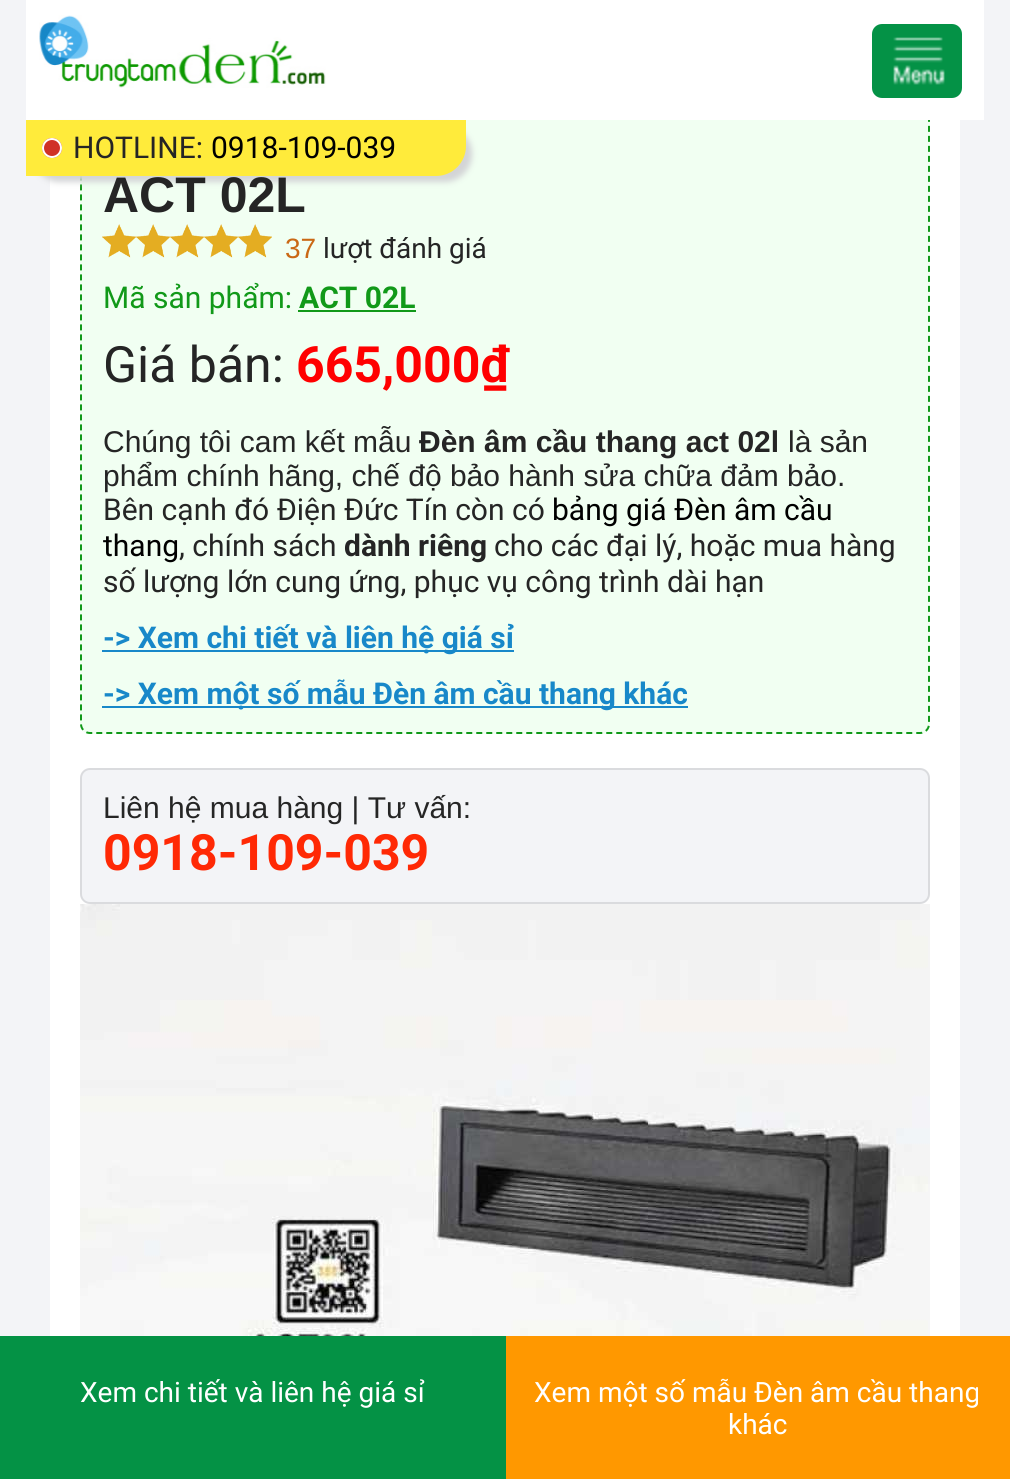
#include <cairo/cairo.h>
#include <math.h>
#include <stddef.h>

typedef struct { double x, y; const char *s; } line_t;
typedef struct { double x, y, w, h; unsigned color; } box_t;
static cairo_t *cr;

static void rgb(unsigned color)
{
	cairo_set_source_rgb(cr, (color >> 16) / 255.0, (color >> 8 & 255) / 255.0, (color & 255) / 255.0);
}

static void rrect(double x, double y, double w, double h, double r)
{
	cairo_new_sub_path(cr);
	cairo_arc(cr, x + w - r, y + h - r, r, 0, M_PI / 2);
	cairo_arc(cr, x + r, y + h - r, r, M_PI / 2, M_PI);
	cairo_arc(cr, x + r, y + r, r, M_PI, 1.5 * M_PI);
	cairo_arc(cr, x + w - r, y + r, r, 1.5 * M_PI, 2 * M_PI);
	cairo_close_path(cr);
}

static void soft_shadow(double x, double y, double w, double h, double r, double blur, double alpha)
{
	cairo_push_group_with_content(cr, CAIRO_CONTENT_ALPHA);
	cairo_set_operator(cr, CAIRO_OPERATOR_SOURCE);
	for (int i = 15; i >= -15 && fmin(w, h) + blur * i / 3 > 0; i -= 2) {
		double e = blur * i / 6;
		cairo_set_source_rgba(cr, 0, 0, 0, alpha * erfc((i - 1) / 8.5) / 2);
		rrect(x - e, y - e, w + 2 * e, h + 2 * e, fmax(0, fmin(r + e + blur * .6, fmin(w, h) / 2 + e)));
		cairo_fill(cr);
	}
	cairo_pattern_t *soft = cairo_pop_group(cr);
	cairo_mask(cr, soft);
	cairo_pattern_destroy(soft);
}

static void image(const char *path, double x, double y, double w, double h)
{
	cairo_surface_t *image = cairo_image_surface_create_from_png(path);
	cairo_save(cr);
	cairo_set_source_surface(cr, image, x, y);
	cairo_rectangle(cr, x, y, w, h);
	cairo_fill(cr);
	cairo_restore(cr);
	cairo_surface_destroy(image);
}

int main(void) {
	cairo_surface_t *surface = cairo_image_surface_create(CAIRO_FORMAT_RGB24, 1010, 1479);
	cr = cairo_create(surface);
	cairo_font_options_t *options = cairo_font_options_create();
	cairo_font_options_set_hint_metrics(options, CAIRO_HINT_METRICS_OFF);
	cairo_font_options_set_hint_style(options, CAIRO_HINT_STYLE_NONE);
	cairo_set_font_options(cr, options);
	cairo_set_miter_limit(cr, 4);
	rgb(0xf3f4f7);
	cairo_paint(cr);
	rgb(0xffffff);
	cairo_rectangle(cr, 50, 120, 910, 1216);
	cairo_fill(cr);
	rgb(0xf1fff2);
	rrect(80, 110, 850, 624, 10);
	cairo_fill(cr);
	cairo_new_path(cr);
	cairo_move_to(cr, 90, 111);
	cairo_line_to(cr, 920, 111);
	cairo_curve_to(cr, 925, 111, 929, 115, 929, 120);
	cairo_line_to(cr, 929, 724);
	cairo_curve_to(cr, 929, 729, 925, 733, 920, 733);
	cairo_line_to(cr, 90, 733);
	cairo_curve_to(cr, 85, 733, 81, 729, 81, 724);
	cairo_line_to(cr, 81, 120);
	cairo_curve_to(cr, 81, 115, 85, 111, 90, 111);
	cairo_close_path(cr);
	rgb(0x119919);
	cairo_set_dash(cr, (double[]){6, 4}, 2, 0);
	cairo_stroke(cr);
	rgb(0xffffff);
	cairo_rectangle(cr, 26, 0, 958, 120);
	cairo_fill(cr);
	image("img/1.png", 39, 15, 287, 73);
	rgb(0x049246);
	rrect(872, 24, 90, 74, 10);
	cairo_fill(cr);
	image("img/2.png", 893, 37, 52, 48);
	rgb(0xd3d4d6);
	soft_shadow(32, 126, 440, 56, 30, 3, 1);
	rgb(0xffeb3b);
	cairo_new_path(cr);
	cairo_move_to(cr, 26, 120);
	cairo_line_to(cr, 466, 120);
	cairo_line_to(cr, 466, 146);
	cairo_curve_to(cr, 466, 162.5, 452.5, 176, 436, 176);
	cairo_line_to(cr, 26, 176);
	cairo_close_path(cr);
	cairo_fill(cr);
	rgb(0xce3227);
	cairo_arc(cr, 52, 148, 10, 0, 2 * M_PI);
	cairo_fill(cr);
	cairo_set_source_rgba(cr, 0.831, 0.192, 0.149, 0.45);
	cairo_arc(cr, 52, 148, 9, 0, 2 * M_PI);
	cairo_fill_preserve(cr);
	rgb(0xffffff);
	cairo_set_dash(cr, NULL, 0, 0);
	cairo_stroke(cr);
	image("img/3.png", 102, 224, 34, 34);
	image("img/3.png", 136, 224, 34, 34);
	image("img/3.png", 170, 224, 34, 34);
	image("img/3.png", 204, 224, 34, 34);
	image("img/3.png", 238, 224, 34, 34);
	{
		static const box_t items[] = {
			{298, 310, 118, 2, 0x119919},
			{102, 650, 412, 2, 0x1888c9},
			{102, 706, 586, 2, 0x1888c9},
		};
		for (size_t i = 0; i < sizeof items / sizeof *items; i++) {
			rgb(items[i].color);
			cairo_rectangle(cr, items[i].x, items[i].y, items[i].w, items[i].h);
			cairo_fill(cr);
		}
	}
	rgb(0xf3f4f7);
	rrect(81, 769, 848, 134, 9);
	cairo_fill_preserve(cr);
	rgb(0xdadbde);
	cairo_stroke(cr);
	image("img/4.png", 80, 904, 850, 432);
	rgb(0x049245);
	cairo_rectangle(cr, 0, 1336, 506, 143);
	cairo_fill(cr);
	rgb(0xff9800);
	cairo_rectangle(cr, 506, 1336, 504, 143);
	cairo_fill(cr);
	cairo_select_font_face(cr, "Roboto", CAIRO_FONT_SLANT_NORMAL, CAIRO_FONT_WEIGHT_NORMAL);
	cairo_set_font_size(cr, 30);
	rgb(0x252525);
	cairo_move_to(cr, 73, 158);
	cairo_show_text(cr, "HOTLINE:");
	rgb(0x000000);
	cairo_move_to(cr, 211, 158);
	cairo_show_text(cr, "0918-109-039");
	cairo_select_font_face(cr, "Liberation Sans", CAIRO_FONT_SLANT_NORMAL, CAIRO_FONT_WEIGHT_BOLD);
	cairo_set_font_size(cr, 50);
	rgb(0x252525);
	cairo_move_to(cr, 103, 212);
	cairo_show_text(cr, "ACT 02L");
	cairo_select_font_face(cr, "Liberation Sans", CAIRO_FONT_SLANT_NORMAL, CAIRO_FONT_WEIGHT_NORMAL);
	cairo_set_font_size(cr, 28);
	rgb(0xca6815);
	cairo_move_to(cr, 285, 258);
	cairo_show_text(cr, "37");
	cairo_select_font_face(cr, "Roboto", CAIRO_FONT_SLANT_NORMAL, CAIRO_FONT_WEIGHT_NORMAL);
	rgb(0x252525);
	cairo_move_to(cr, 323, 258);
	cairo_show_text(cr, "lượt đánh giá");
	cairo_set_font_size(cr, 30);
	rgb(0x119919);
	cairo_move_to(cr, 103, 308);
	cairo_show_text(cr, "Mã sản phẩm:");
	cairo_select_font_face(cr, "Roboto", CAIRO_FONT_SLANT_NORMAL, CAIRO_FONT_WEIGHT_BOLD);
	cairo_move_to(cr, 299, 308);
	cairo_show_text(cr, "ACT 02L");
	cairo_select_font_face(cr, "Roboto", CAIRO_FONT_SLANT_NORMAL, CAIRO_FONT_WEIGHT_NORMAL);
	cairo_set_font_size(cr, 50);
	rgb(0x252525);
	cairo_move_to(cr, 103, 382);
	cairo_show_text(cr, "Giá bán:");
	cairo_select_font_face(cr, "Roboto", CAIRO_FONT_SLANT_NORMAL, CAIRO_FONT_WEIGHT_BOLD);
	rgb(0xff0000);
	cairo_move_to(cr, 296, 382);
	cairo_show_text(cr, "665,000₫");
	cairo_select_font_face(cr, "Liberation Sans", CAIRO_FONT_SLANT_NORMAL, CAIRO_FONT_WEIGHT_NORMAL);
	cairo_set_font_size(cr, 30);
	rgb(0x252525);
	cairo_move_to(cr, 103, 452);
	cairo_show_text(cr, "Chúng tôi cam kết mẫu");
	cairo_select_font_face(cr, "Liberation Sans", CAIRO_FONT_SLANT_NORMAL, CAIRO_FONT_WEIGHT_BOLD);
	cairo_move_to(cr, 419, 452);
	cairo_show_text(cr, "Đèn âm cầu thang act 02l");
	cairo_select_font_face(cr, "Liberation Sans", CAIRO_FONT_SLANT_NORMAL, CAIRO_FONT_WEIGHT_NORMAL);
	cairo_move_to(cr, 788, 452);
	cairo_show_text(cr, "là sản");
	cairo_move_to(cr, 103, 486);
	cairo_show_text(cr, "phẩm chính hãng, chế độ bảo hành sửa chữa đảm bảo.");
	cairo_select_font_face(cr, "Roboto", CAIRO_FONT_SLANT_NORMAL, CAIRO_FONT_WEIGHT_NORMAL);
	cairo_move_to(cr, 103, 520);
	cairo_show_text(cr, "Bên cạnh đó Điện Đức Tín còn có");
	rgb(0x000000);
	cairo_move_to(cr, 552, 520);
	cairo_show_text(cr, "bảng giá Đèn âm cầu");
	cairo_move_to(cr, 103, 556);
	cairo_show_text(cr, "thang");
	rgb(0x252525);
	cairo_move_to(cr, 179, 556);
	cairo_show_text(cr, ", chính sách");
	cairo_select_font_face(cr, "Roboto", CAIRO_FONT_SLANT_NORMAL, CAIRO_FONT_WEIGHT_BOLD);
	cairo_move_to(cr, 344, 556);
	cairo_show_text(cr, "dành riêng");
	cairo_select_font_face(cr, "Roboto", CAIRO_FONT_SLANT_NORMAL, CAIRO_FONT_WEIGHT_NORMAL);
	cairo_move_to(cr, 494, 556);
	cairo_show_text(cr, "cho các đại lý, hoặc mua hàng");
	cairo_move_to(cr, 103, 592);
	cairo_show_text(cr, "số lượng lớn cung ứng, phục vụ công trình dài hạn");
	cairo_select_font_face(cr, "Roboto", CAIRO_FONT_SLANT_NORMAL, CAIRO_FONT_WEIGHT_BOLD);
	rgb(0x1888c9);
	cairo_move_to(cr, 103, 648);
	cairo_show_text(cr, "-> Xem chi tiết và liên hệ giá sỉ");
	cairo_move_to(cr, 103, 704);
	cairo_show_text(cr, "-> Xem một số mẫu Đèn âm cầu thang khác");
	cairo_select_font_face(cr, "Liberation Sans", CAIRO_FONT_SLANT_NORMAL, CAIRO_FONT_WEIGHT_NORMAL);
	rgb(0x252525);
	cairo_move_to(cr, 103, 818);
	cairo_show_text(cr, "Liên hệ mua hàng | Tư vấn:");
	cairo_select_font_face(cr, "Roboto", CAIRO_FONT_SLANT_NORMAL, CAIRO_FONT_WEIGHT_BOLD);
	cairo_set_font_size(cr, 50);
	rgb(0xff2905);
	cairo_move_to(cr, 103, 870);
	cairo_show_text(cr, "0918-109-039");
	cairo_select_font_face(cr, "Roboto", CAIRO_FONT_SLANT_NORMAL, CAIRO_FONT_WEIGHT_NORMAL);
	cairo_set_font_size(cr, 28);
	rgb(0xffffff);
	{
		static const line_t items[] = {
			{80, 1402, "Xem chi tiết và liên hệ giá sỉ"},
			{534, 1402, "Xem một số mẫu Đèn âm cầu thang"},
			{728, 1434, "khác"},
		};
		for (size_t i = 0; i < sizeof items / sizeof *items; i++) {
			cairo_move_to(cr, items[i].x, items[i].y);
			cairo_show_text(cr, items[i].s);
		}
	}
	cairo_surface_write_to_png(surface, "page.png");
	cairo_font_options_destroy(options);
	cairo_destroy(cr);
	cairo_surface_destroy(surface);
	return 0;
}
